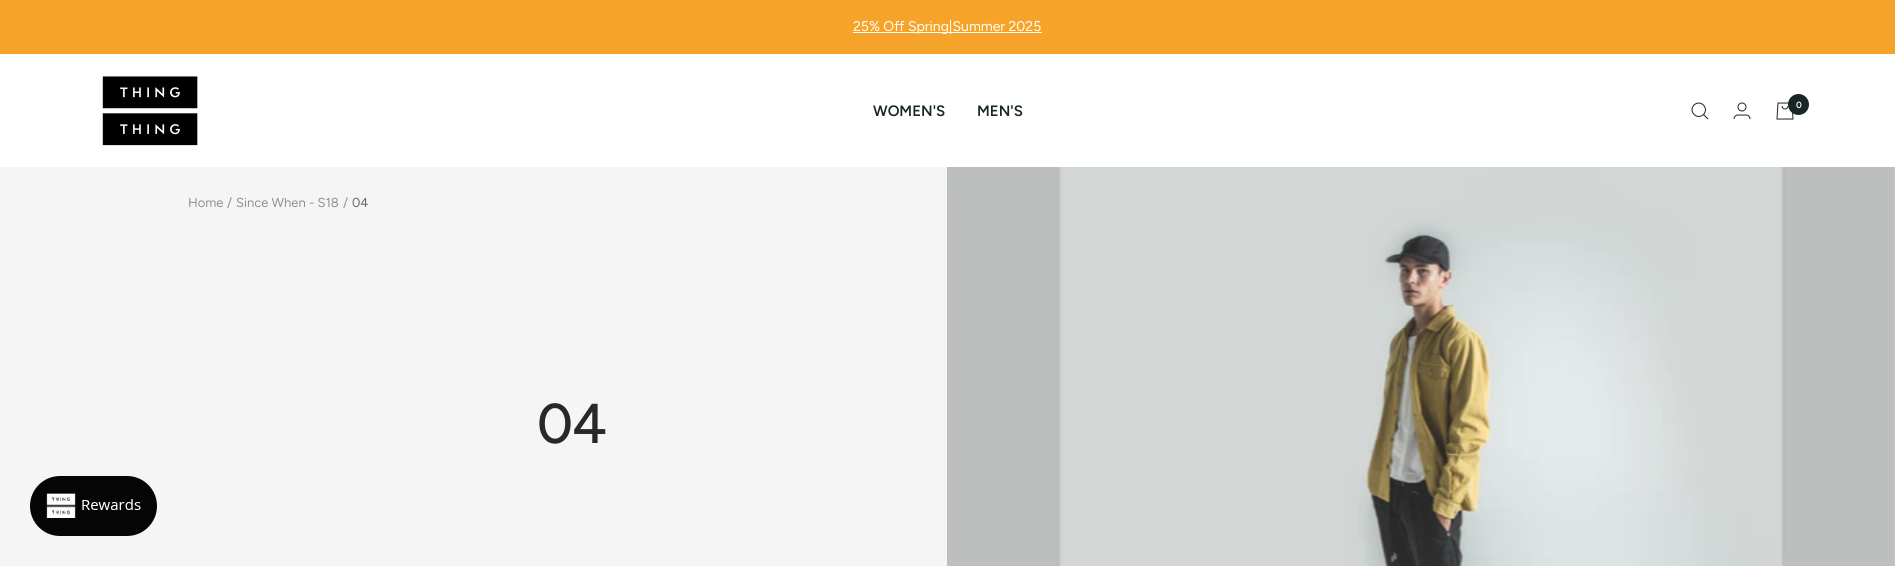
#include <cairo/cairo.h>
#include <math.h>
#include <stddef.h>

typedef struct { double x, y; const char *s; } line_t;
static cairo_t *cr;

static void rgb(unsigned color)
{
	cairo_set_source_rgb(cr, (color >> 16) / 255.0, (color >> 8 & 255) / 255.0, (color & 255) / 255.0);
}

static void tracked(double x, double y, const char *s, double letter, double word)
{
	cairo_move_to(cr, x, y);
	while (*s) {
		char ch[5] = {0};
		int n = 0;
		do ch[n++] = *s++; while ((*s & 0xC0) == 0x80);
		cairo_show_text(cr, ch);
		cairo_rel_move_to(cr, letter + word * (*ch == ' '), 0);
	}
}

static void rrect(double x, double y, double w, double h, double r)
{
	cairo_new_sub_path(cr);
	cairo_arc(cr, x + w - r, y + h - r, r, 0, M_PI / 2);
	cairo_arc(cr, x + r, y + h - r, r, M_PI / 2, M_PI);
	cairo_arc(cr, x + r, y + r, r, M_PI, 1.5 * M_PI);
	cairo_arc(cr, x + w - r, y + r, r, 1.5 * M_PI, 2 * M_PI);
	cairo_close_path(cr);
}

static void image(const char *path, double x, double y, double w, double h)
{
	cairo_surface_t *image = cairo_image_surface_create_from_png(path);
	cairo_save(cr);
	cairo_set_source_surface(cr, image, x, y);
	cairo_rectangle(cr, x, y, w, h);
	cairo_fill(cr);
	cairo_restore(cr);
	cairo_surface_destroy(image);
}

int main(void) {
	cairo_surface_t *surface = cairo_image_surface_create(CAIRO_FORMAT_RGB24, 1895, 566);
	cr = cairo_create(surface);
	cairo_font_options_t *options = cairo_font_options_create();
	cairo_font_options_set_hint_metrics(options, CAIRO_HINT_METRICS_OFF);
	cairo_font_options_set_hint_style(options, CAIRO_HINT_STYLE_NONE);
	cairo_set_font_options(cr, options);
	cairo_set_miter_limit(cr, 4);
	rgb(0xffffff);
	cairo_paint(cr);
	rgb(0xf6a429);
	cairo_rectangle(cr, 0, 0, 1895, 54);
	cairo_fill(cr);
	rgb(0xffffff);
	cairo_rectangle(cr, 853, 32, 189, 1);
	cairo_fill(cr);
	image("img/1.png", 102, 76, 96, 70);
	cairo_new_path(cr);
	cairo_move_to(cr, 1703.5, 114.5);
	cairo_curve_to(cr, 1709.5, 108, 1700.5, 99, 1694, 105);
	cairo_curve_to(cr, 1688, 111.5, 1697, 120.5, 1703.5, 114.5);
	cairo_close_path(cr);
	cairo_move_to(cr, 1703.5, 114.5);
	cairo_line_to(cr, 1708, 119);
	rgb(0x192626);
	cairo_set_line_width(cr, 1);
	cairo_stroke(cr);
	image("img/2.png", 1733, 102, 18, 17);
	image("img/3.png", 1776, 102, 18, 18);
	cairo_arc(cr, 1798.5, 104.5, 10.5, 0, 2 * M_PI);
	cairo_fill(cr);
	rgb(0xf5f5f5);
	cairo_rectangle(cr, 0, 167, 1895, 399);
	cairo_fill(cr);
	image("img/4.png", 947, 167, 948, 399);
	rgb(0x050505);
	rrect(30, 476, 127, 60, 30);
	cairo_fill(cr);
	image("img/5.png", 46, 493, 95, 25);
	cairo_select_font_face(cr, "Figtree", CAIRO_FONT_SLANT_NORMAL, CAIRO_FONT_WEIGHT_NORMAL);
	cairo_set_font_size(cr, 14);
	rgb(0xffffff);
	cairo_move_to(cr, 853, 31);
	cairo_show_text(cr, "25% Off Spring|Summer 2025");
	cairo_select_font_face(cr, "Figtree SemiBold", CAIRO_FONT_SLANT_NORMAL, CAIRO_FONT_WEIGHT_NORMAL);
	cairo_set_font_size(cr, 15);
	rgb(0x192626);
	cairo_move_to(cr, 873, 116);
	cairo_show_text(cr, "WOMEN'S");
	cairo_move_to(cr, 977, 116);
	cairo_show_text(cr, "MEN'S");
	cairo_set_font_size(cr, 9);
	rgb(0xffffff);
	cairo_move_to(cr, 1796, 108);
	cairo_show_text(cr, "0");
	cairo_select_font_face(cr, "Figtree", CAIRO_FONT_SLANT_NORMAL, CAIRO_FONT_WEIGHT_NORMAL);
	cairo_set_font_size(cr, 13);
	rgb(0x919191);
	{
		static const line_t items[] = {
			{188, 207, "Home"},
			{227, 207, "/"},
			{236, 207, "Since When - S18"},
			{343, 207, "/"},
		};
		for (size_t i = 0; i < sizeof items / sizeof *items; i++) {
			cairo_move_to(cr, items[i].x, items[i].y);
			cairo_show_text(cr, items[i].s);
		}
	}
	rgb(0x666666);
	cairo_move_to(cr, 352, 207);
	cairo_show_text(cr, "04");
	cairo_select_font_face(cr, "Figtree Medium", CAIRO_FONT_SLANT_NORMAL, CAIRO_FONT_WEIGHT_NORMAL);
	cairo_set_font_size(cr, 56);
	rgb(0x282828);
	tracked(537, 443, "04", -1, 0);
	cairo_surface_write_to_png(surface, "page.png");
	cairo_font_options_destroy(options);
	cairo_destroy(cr);
	cairo_surface_destroy(surface);
	return 0;
}
